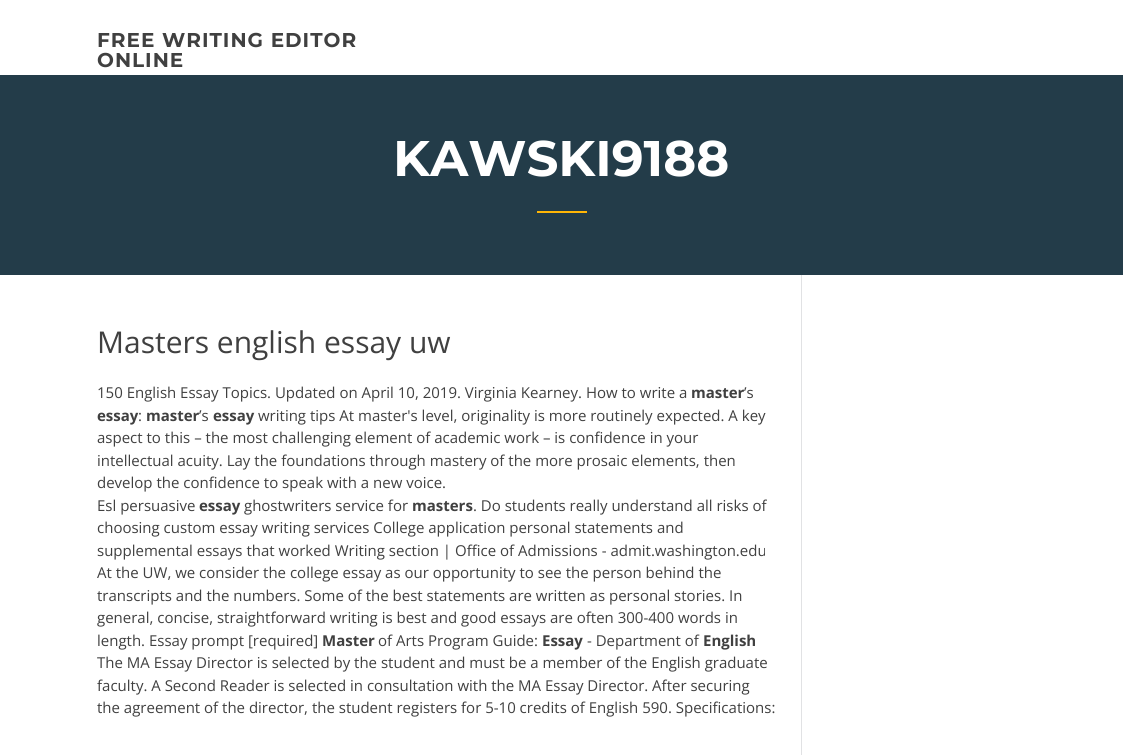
#include <cairo/cairo.h>
#include <math.h>
#include <stddef.h>

typedef struct { double x, y; const char *s; } line_t;
typedef struct { double x, y, w, h; unsigned color; } box_t;
static cairo_t *cr;

static void rgb(unsigned color)
{
	cairo_set_source_rgb(cr, (color >> 16) / 255.0, (color >> 8 & 255) / 255.0, (color & 255) / 255.0);
}

static void tracked(double x, double y, const char *s, double letter, double word)
{
	cairo_move_to(cr, x, y);
	while (*s) {
		char ch[5] = {0};
		int n = 0;
		do ch[n++] = *s++; while ((*s & 0xC0) == 0x80);
		cairo_show_text(cr, ch);
		cairo_rel_move_to(cr, letter + word * (*ch == ' '), 0);
	}
}

int main(void) {
	cairo_surface_t *surface = cairo_image_surface_create(CAIRO_FORMAT_RGB24, 1123, 755);
	cr = cairo_create(surface);
	cairo_font_options_t *options = cairo_font_options_create();
	cairo_font_options_set_hint_metrics(options, CAIRO_HINT_METRICS_OFF);
	cairo_font_options_set_hint_style(options, CAIRO_HINT_STYLE_NONE);
	cairo_set_font_options(cr, options);
	cairo_set_miter_limit(cr, 4);
	rgb(0xffffff);
	cairo_paint(cr);
	{
		static const box_t items[] = {
			{0, 75, 1123, 200, 0x233c49},
			{537, 211, 50, 2, 0xffb606},
			{801, 275, 1, 480, 0xe1e2e4},
		};
		for (size_t i = 0; i < sizeof items / sizeof *items; i++) {
			rgb(items[i].color);
			cairo_rectangle(cr, items[i].x, items[i].y, items[i].w, items[i].h);
			cairo_fill(cr);
		}
	}
	cairo_select_font_face(cr, "Montserrat", CAIRO_FONT_SLANT_NORMAL, CAIRO_FONT_WEIGHT_BOLD);
	cairo_set_font_size(cr, 20);
	rgb(0x404040);
	tracked(97, 47, "FREE WRITING EDITOR", 1, 0);
	tracked(97, 67, "ONLINE", 1, 0);
	cairo_set_font_size(cr, 50);
	rgb(0xffffff);
	cairo_move_to(cr, 393, 176);
	cairo_show_text(cr, "KAWSKI9188");
	cairo_select_font_face(cr, "Open Sans", CAIRO_FONT_SLANT_NORMAL, CAIRO_FONT_WEIGHT_NORMAL);
	cairo_set_font_size(cr, 30);
	rgb(0x404040);
	cairo_move_to(cr, 97, 353);
	cairo_show_text(cr, "Masters english essay uw");
	cairo_set_font_size(cr, 15);
	cairo_move_to(cr, 97, 398);
	cairo_show_text(cr, "150 English Essay Topics. Updated on April 10, 2019. Virginia Kearney. How to write a");
	cairo_select_font_face(cr, "Open Sans", CAIRO_FONT_SLANT_NORMAL, CAIRO_FONT_WEIGHT_BOLD);
	cairo_move_to(cr, 691, 398);
	cairo_show_text(cr, "master");
	cairo_select_font_face(cr, "Open Sans", CAIRO_FONT_SLANT_NORMAL, CAIRO_FONT_WEIGHT_NORMAL);
	cairo_move_to(cr, 744, 398);
	cairo_show_text(cr, "’s");
	cairo_select_font_face(cr, "Open Sans", CAIRO_FONT_SLANT_NORMAL, CAIRO_FONT_WEIGHT_BOLD);
	cairo_move_to(cr, 97, 421);
	cairo_show_text(cr, "essay");
	cairo_select_font_face(cr, "Open Sans", CAIRO_FONT_SLANT_NORMAL, CAIRO_FONT_WEIGHT_NORMAL);
	cairo_move_to(cr, 138, 421);
	cairo_show_text(cr, ":");
	cairo_select_font_face(cr, "Open Sans", CAIRO_FONT_SLANT_NORMAL, CAIRO_FONT_WEIGHT_BOLD);
	cairo_move_to(cr, 146, 421);
	cairo_show_text(cr, "master");
	cairo_select_font_face(cr, "Open Sans", CAIRO_FONT_SLANT_NORMAL, CAIRO_FONT_WEIGHT_NORMAL);
	cairo_move_to(cr, 199, 421);
	cairo_show_text(cr, "’s");
	cairo_select_font_face(cr, "Open Sans", CAIRO_FONT_SLANT_NORMAL, CAIRO_FONT_WEIGHT_BOLD);
	cairo_move_to(cr, 213, 421);
	cairo_show_text(cr, "essay");
	cairo_select_font_face(cr, "Open Sans", CAIRO_FONT_SLANT_NORMAL, CAIRO_FONT_WEIGHT_NORMAL);
	{
		static const line_t items[] = {
			{258, 421, "writing tips At master's level, originality is more routinely expected. A key"},
			{97, 443, "aspect to this – the most challenging element of academic work – is confidence in your"},
			{97, 466, "intellectual acuity. Lay the foundations through mastery of the more prosaic elements, then"},
			{97, 488, "develop the confidence to speak with a new voice."},
			{97, 511, "Esl persuasive"},
		};
		for (size_t i = 0; i < sizeof items / sizeof *items; i++) {
			cairo_move_to(cr, items[i].x, items[i].y);
			cairo_show_text(cr, items[i].s);
		}
	}
	cairo_select_font_face(cr, "Open Sans", CAIRO_FONT_SLANT_NORMAL, CAIRO_FONT_WEIGHT_BOLD);
	cairo_move_to(cr, 199, 511);
	cairo_show_text(cr, "essay");
	cairo_select_font_face(cr, "Open Sans", CAIRO_FONT_SLANT_NORMAL, CAIRO_FONT_WEIGHT_NORMAL);
	cairo_move_to(cr, 244, 511);
	cairo_show_text(cr, "ghostwriters service for");
	cairo_select_font_face(cr, "Open Sans", CAIRO_FONT_SLANT_NORMAL, CAIRO_FONT_WEIGHT_BOLD);
	cairo_move_to(cr, 412, 511);
	cairo_show_text(cr, "masters");
	cairo_select_font_face(cr, "Open Sans", CAIRO_FONT_SLANT_NORMAL, CAIRO_FONT_WEIGHT_NORMAL);
	{
		static const line_t items[] = {
			{473, 511, ". Do students really understand all risks of"},
			{97, 533, "choosing custom essay writing services College application personal statements and"},
			{97, 556, "supplemental essays that worked Writing section | Office of Admissions - admit.washington.edu"},
			{97, 578, "At the UW, we consider the college essay as our opportunity to see the person behind the"},
			{97, 601, "transcripts and the numbers. Some of the best statements are written as personal stories. In"},
			{97, 623, "general, concise, straightforward writing is best and good essays are often 300-400 words in"},
			{97, 646, "length. Essay prompt [required]"},
		};
		for (size_t i = 0; i < sizeof items / sizeof *items; i++) {
			cairo_move_to(cr, items[i].x, items[i].y);
			cairo_show_text(cr, items[i].s);
		}
	}
	cairo_select_font_face(cr, "Open Sans", CAIRO_FONT_SLANT_NORMAL, CAIRO_FONT_WEIGHT_BOLD);
	cairo_move_to(cr, 322, 646);
	cairo_show_text(cr, "Master");
	cairo_select_font_face(cr, "Open Sans", CAIRO_FONT_SLANT_NORMAL, CAIRO_FONT_WEIGHT_NORMAL);
	cairo_move_to(cr, 378, 646);
	cairo_show_text(cr, "of Arts Program Guide:");
	cairo_select_font_face(cr, "Open Sans", CAIRO_FONT_SLANT_NORMAL, CAIRO_FONT_WEIGHT_BOLD);
	cairo_move_to(cr, 542, 646);
	cairo_show_text(cr, "Essay");
	cairo_select_font_face(cr, "Open Sans", CAIRO_FONT_SLANT_NORMAL, CAIRO_FONT_WEIGHT_NORMAL);
	cairo_move_to(cr, 587, 646);
	cairo_show_text(cr, "- Department of");
	cairo_select_font_face(cr, "Open Sans", CAIRO_FONT_SLANT_NORMAL, CAIRO_FONT_WEIGHT_BOLD);
	cairo_move_to(cr, 703, 646);
	cairo_show_text(cr, "English");
	cairo_select_font_face(cr, "Open Sans", CAIRO_FONT_SLANT_NORMAL, CAIRO_FONT_WEIGHT_NORMAL);
	{
		static const line_t items[] = {
			{97, 668, "The MA Essay Director is selected by the student and must be a member of the English graduate"},
			{97, 691, "faculty. A Second Reader is selected in consultation with the MA Essay Director. After securing"},
			{97, 713, "the agreement of the director, the student registers for 5-10 credits of English 590. Specifications:"},
		};
		for (size_t i = 0; i < sizeof items / sizeof *items; i++) {
			cairo_move_to(cr, items[i].x, items[i].y);
			cairo_show_text(cr, items[i].s);
		}
	}
	cairo_surface_write_to_png(surface, "page.png");
	cairo_font_options_destroy(options);
	cairo_destroy(cr);
	cairo_surface_destroy(surface);
	return 0;
}
